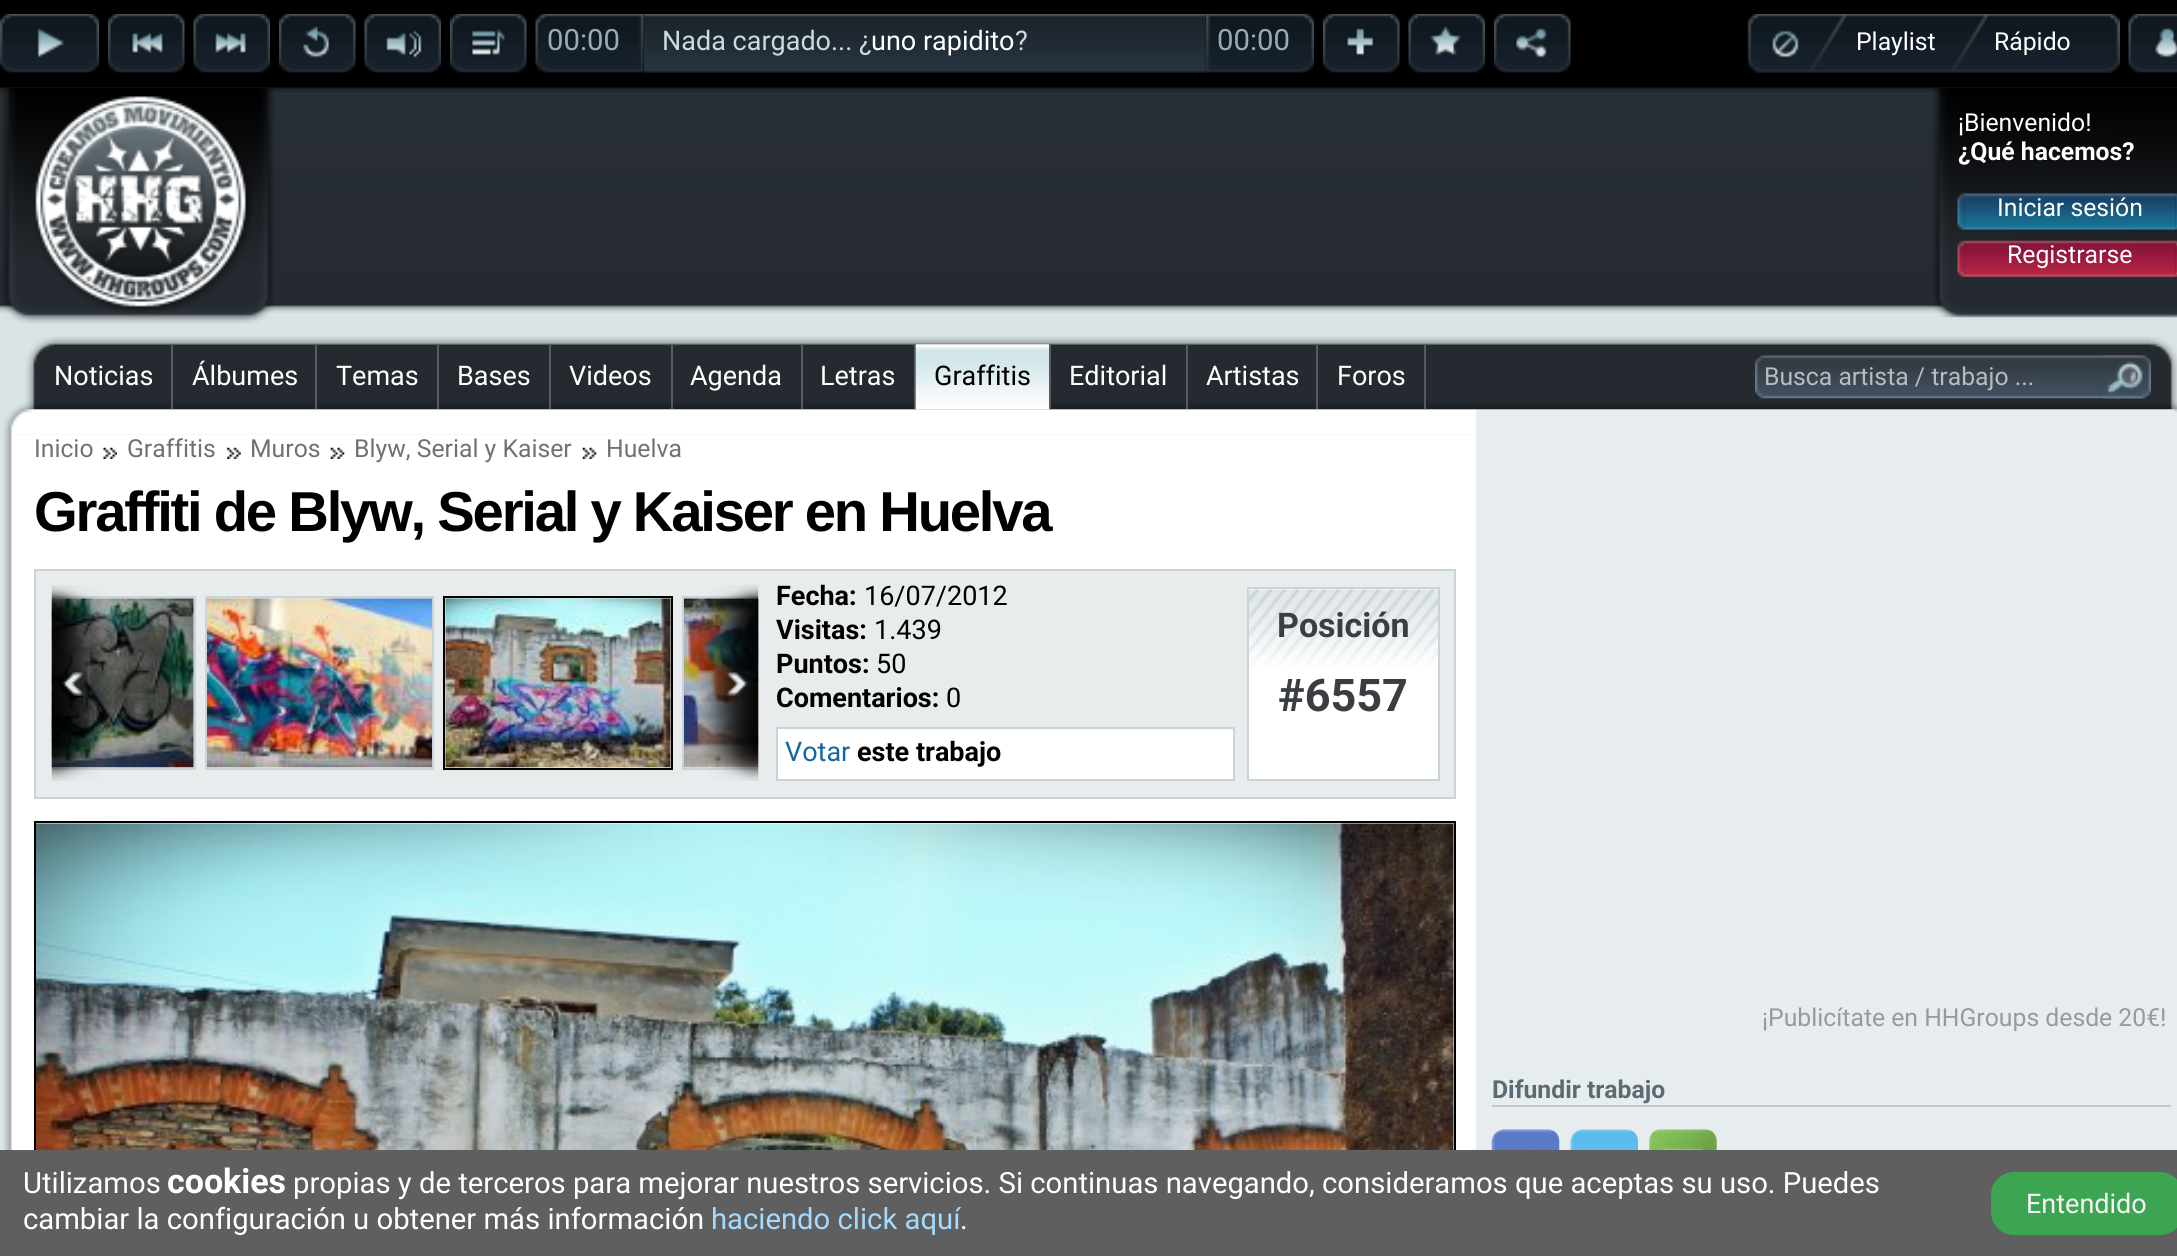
#include <cairo/cairo.h>
#include <math.h>
#include <stddef.h>

typedef struct { double x, y; const char *s; } line_t;
typedef struct { double x, y, w, h; unsigned color; } box_t;
static cairo_t *cr;

static void rgb(unsigned color)
{
	cairo_set_source_rgb(cr, (color >> 16) / 255.0, (color >> 8 & 255) / 255.0, (color & 255) / 255.0);
}

static void tracked(double x, double y, const char *s, double letter, double word)
{
	cairo_move_to(cr, x, y);
	while (*s) {
		char ch[5] = {0};
		int n = 0;
		do ch[n++] = *s++; while ((*s & 0xC0) == 0x80);
		cairo_show_text(cr, ch);
		cairo_rel_move_to(cr, letter + word * (*ch == ' '), 0);
	}
}

static void rrect(double x, double y, double w, double h, double r)
{
	cairo_new_sub_path(cr);
	cairo_arc(cr, x + w - r, y + h - r, r, 0, M_PI / 2);
	cairo_arc(cr, x + r, y + h - r, r, M_PI / 2, M_PI);
	cairo_arc(cr, x + r, y + r, r, M_PI, 1.5 * M_PI);
	cairo_arc(cr, x + w - r, y + r, r, 1.5 * M_PI, 2 * M_PI);
	cairo_close_path(cr);
}

static void image(const char *path, double x, double y, double w, double h)
{
	cairo_surface_t *image = cairo_image_surface_create_from_png(path);
	cairo_save(cr);
	cairo_set_source_surface(cr, image, x, y);
	cairo_rectangle(cr, x, y, w, h);
	cairo_fill(cr);
	cairo_restore(cr);
	cairo_surface_destroy(image);
}

int main(void) {
	cairo_surface_t *surface = cairo_image_surface_create(CAIRO_FORMAT_RGB24, 2177, 1256);
	cr = cairo_create(surface);
	cairo_font_options_t *options = cairo_font_options_create();
	cairo_font_options_set_hint_metrics(options, CAIRO_HINT_METRICS_OFF);
	cairo_font_options_set_hint_style(options, CAIRO_HINT_STYLE_NONE);
	cairo_set_font_options(cr, options);
	cairo_set_miter_limit(cr, 4);
	rgb(0xdae4e6);
	cairo_paint(cr);
	image("img/1.png", 0, 87, 2177, 226);
	image("img/18.png", 2, 87, 272, 237);
	image("img/20.png", 1933, 87, 244, 231);
	image("img/2.png", 0, 0, 2177, 93);
	image("img/3.png", 0, 14, 99, 59);
	image("img/4.png", 108, 14, 77, 59);
	image("img/5.png", 193, 14, 77, 59);
	image("img/6.png", 279, 14, 77, 59);
	image("img/7.png", 364, 14, 77, 59);
	image("img/8.png", 450, 14, 77, 59);
	image("img/9.png", 535, 14, 109, 59);
	image("img/11.png", 1206, 14, 108, 59);
	image("img/10.png", 644, 14, 563, 59);
	image("img/12.png", 1323, 14, 77, 59);
	image("img/13.png", 1408, 14, 77, 59);
	image("img/14.png", 1494, 14, 77, 59);
	image("img/15.png", 1747, 14, 373, 59);
	image("img/16.png", 1772, 30, 27, 28);
	image("img/17.png", 2128, 14, 49, 59);
	image("img/19.png", 34, 96, 218, 217);
	image("img/21.png", 1957, 193, 8, 37);
	image("img/22.png", 1964, 193, 212, 37);
	image("img/23.png", 2175, 193, 2, 37);
	image("img/24.png", 1957, 240, 8, 37);
	image("img/25.png", 1964, 240, 212, 37);
	image("img/26.png", 2175, 240, 2, 37);
	image("img/27.png", 14, 337, 40, 73);
	image("img/28.png", 54, 336, 2097, 74);
	{
		static const box_t items[] = {
			{171, 344, 2, 66, 0x575a63},
			{315, 344, 2, 66, 0x575a63},
			{437, 344, 2, 66, 0x575a63},
			{549, 344, 2, 66, 0x575a63},
			{671, 344, 2, 66, 0x575a63},
			{801, 344, 2, 66, 0x575a63},
			{914, 344, 2, 66, 0x575a63},
		};
		for (size_t i = 0; i < sizeof items / sizeof *items; i++) {
			rgb(items[i].color);
			cairo_rectangle(cr, items[i].x, items[i].y, items[i].w, items[i].h);
			cairo_fill(cr);
		}
	}
	image("img/29.png", 915, 344, 134, 66);
	{
		static const box_t items[] = {
			{1049, 344, 2, 66, 0x575a63},
			{1186, 344, 2, 66, 0x575a63},
			{1316, 344, 2, 66, 0x575a63},
			{1424, 344, 2, 66, 0x575a63},
		};
		for (size_t i = 0; i < sizeof items / sizeof *items; i++) {
			rgb(items[i].color);
			cairo_rectangle(cr, items[i].x, items[i].y, items[i].w, items[i].h);
			cairo_fill(cr);
		}
	}
	image("img/30.png", 1755, 355, 9, 44);
	image("img/31.png", 1764, 355, 338, 44);
	image("img/32.png", 2101, 355, 50, 44);
	image("img/33.png", 2101, 355, 45, 44);
	image("img/34.png", 2151, 337, 26, 73);
	image("img/35.png", 3, 409, 2174, 26);
	image("img/36.png", 3, 434, 2174, 716);
	image("img/37.png", 103, 447, 14, 12);
	image("img/38.png", 227, 447, 14, 12);
	image("img/39.png", 330, 447, 15, 12);
	image("img/39.png", 582, 447, 15, 12);
	rgb(0xe8eced);
	cairo_rectangle(cr, 35, 570, 1420, 228);
	cairo_fill_preserve(cr);
	rgb(0xcad3d8);
	cairo_stroke(cr);
	cairo_save(cr);
	cairo_rectangle(cr, 52, 596, 706, 180);
	cairo_clip(cr);
	cairo_rectangle(cr, -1, 597, 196, 172);
	cairo_stroke(cr);
	cairo_restore(cr);
	image("img/42.png", 51, 598, 143, 170);
	image("img/40.png", 51, 585, 61, 196);
	cairo_rectangle(cr, 206, 597, 227, 172);
	cairo_stroke(cr);
	image("img/43.png", 207, 598, 225, 170);
	cairo_rectangle(cr, 444, 597, 228, 172);
	rgb(0x000000);
	cairo_stroke(cr);
	image("img/44.png", 445, 598, 226, 170);
	rgb(0xffffff);
	cairo_rectangle(cr, 777, 728, 457, 52);
	cairo_fill_preserve(cr);
	rgb(0xcad3d8);
	cairo_stroke(cr);
	rgb(0xffffff);
	cairo_rectangle(cr, 1249, 589, 189, 190);
	cairo_fill(cr);
	image("img/46.png", 1249, 589, 189, 79);
	cairo_rectangle(cr, 1248, 588, 191, 192);
	rgb(0xcad3d8);
	cairo_stroke(cr);
	cairo_rectangle(cr, 35, 822, 1420, 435);
	rgb(0x000000);
	cairo_stroke(cr);
	image("img/47.png", 36, 823, 1418, 327);
	rgb(0xc2c7ca);
	cairo_rectangle(cr, 1492, 1105, 679, 2);
	cairo_fill(cr);
	image("img/48.png", 1491, 1129, 69, 21);
	image("img/49.png", 1570, 1129, 68, 21);
	image("img/50.png", 1649, 1129, 68, 21);
	rgb(0x5f5f5f);
	cairo_rectangle(cr, 0, 1150, 2177, 106);
	cairo_fill(cr);
	rgb(0x3da552);
	rrect(1991, 1172, 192, 63, 23);
	cairo_fill(cr);
	cairo_select_font_face(cr, "Roboto", CAIRO_FONT_SLANT_NORMAL, CAIRO_FONT_WEIGHT_NORMAL);
	cairo_set_font_size(cr, 29.25);
	rgb(0x97acb5);
	cairo_move_to(cr, 547, 50);
	cairo_show_text(cr, "00:00");
	cairo_set_font_size(cr, 27);
	rgb(0xcbdbe0);
	cairo_move_to(cr, 662, 50);
	cairo_show_text(cr, "Nada cargado... ¿");
	rgb(0xffffff);
	cairo_move_to(cr, 871, 50);
	cairo_show_text(cr, "uno rapidito");
	rgb(0xcbdbe0);
	cairo_move_to(cr, 1015, 50);
	cairo_show_text(cr, "?");
	cairo_set_font_size(cr, 29.25);
	rgb(0x97acb5);
	cairo_move_to(cr, 1217, 50);
	cairo_show_text(cr, "00:00");
	cairo_set_font_size(cr, 24.75);
	rgb(0xffffff);
	{
		static const line_t items[] = {
			{1856, 50, "Playlist"},
			{1994, 50, "Rápido"},
			{1958, 131, "¡Bienvenido!"},
		};
		for (size_t i = 0; i < sizeof items / sizeof *items; i++) {
			cairo_move_to(cr, items[i].x, items[i].y);
			cairo_show_text(cr, items[i].s);
		}
	}
	cairo_select_font_face(cr, "Roboto", CAIRO_FONT_SLANT_NORMAL, CAIRO_FONT_WEIGHT_BOLD);
	cairo_move_to(cr, 1958, 160);
	cairo_show_text(cr, "¿Qué hacemos?");
	cairo_select_font_face(cr, "Roboto", CAIRO_FONT_SLANT_NORMAL, CAIRO_FONT_WEIGHT_NORMAL);
	cairo_move_to(cr, 1997, 216);
	cairo_show_text(cr, "Iniciar sesión");
	cairo_move_to(cr, 2007, 263);
	cairo_show_text(cr, "Registrarse");
	cairo_set_font_size(cr, 27);
	{
		static const line_t items[] = {
			{54, 385, "Noticias"},
			{192, 385, "Álbumes"},
			{336, 385, "Temas"},
			{457, 385, "Bases"},
			{569, 385, "Videos"},
			{690, 385, "Agenda"},
			{820, 385, "Letras"},
		};
		for (size_t i = 0; i < sizeof items / sizeof *items; i++) {
			cairo_move_to(cr, items[i].x, items[i].y);
			cairo_show_text(cr, items[i].s);
		}
	}
	rgb(0x000000);
	cairo_move_to(cr, 934, 385);
	cairo_show_text(cr, "Graffitis");
	rgb(0xffffff);
	{
		static const line_t items[] = {
			{1069, 385, "Editorial"},
			{1206, 385, "Artistas"},
			{1337, 385, "Foros"},
		};
		for (size_t i = 0; i < sizeof items / sizeof *items; i++) {
			cairo_move_to(cr, items[i].x, items[i].y);
			cairo_show_text(cr, items[i].s);
		}
	}
	cairo_set_font_size(cr, 24.75);
	rgb(0xb8bcbe);
	cairo_move_to(cr, 1764, 385);
	cairo_show_text(cr, "Busca artista / trabajo ...");
	rgb(0x717171);
	{
		static const line_t items[] = {
			{34, 457, "Inicio"},
			{127, 457, "Graffitis"},
			{250, 457, "Muros"},
			{354, 457, "Blyw, Serial y Kaiser"},
			{606, 457, "Huelva"},
		};
		for (size_t i = 0; i < sizeof items / sizeof *items; i++) {
			cairo_move_to(cr, items[i].x, items[i].y);
			cairo_show_text(cr, items[i].s);
		}
	}
	cairo_select_font_face(cr, "Liberation Sans", CAIRO_FONT_SLANT_NORMAL, CAIRO_FONT_WEIGHT_BOLD);
	cairo_set_font_size(cr, 56.25);
	rgb(0x000000);
	tracked(34, 531, "Graffiti de Blyw, Serial y Kaiser en Huelva", -2.25, 0);
	cairo_select_font_face(cr, "Roboto", CAIRO_FONT_SLANT_NORMAL, CAIRO_FONT_WEIGHT_BOLD);
	cairo_set_font_size(cr, 27);
	cairo_move_to(cr, 776, 605);
	cairo_show_text(cr, "Fecha:");
	cairo_select_font_face(cr, "Roboto", CAIRO_FONT_SLANT_NORMAL, CAIRO_FONT_WEIGHT_NORMAL);
	cairo_move_to(cr, 864, 605);
	cairo_show_text(cr, "16/07/2012");
	cairo_select_font_face(cr, "Roboto", CAIRO_FONT_SLANT_NORMAL, CAIRO_FONT_WEIGHT_BOLD);
	cairo_move_to(cr, 776, 639);
	cairo_show_text(cr, "Visitas:");
	cairo_select_font_face(cr, "Roboto", CAIRO_FONT_SLANT_NORMAL, CAIRO_FONT_WEIGHT_NORMAL);
	cairo_move_to(cr, 874, 639);
	cairo_show_text(cr, "1.439");
	cairo_select_font_face(cr, "Roboto", CAIRO_FONT_SLANT_NORMAL, CAIRO_FONT_WEIGHT_BOLD);
	cairo_move_to(cr, 776, 673);
	cairo_show_text(cr, "Puntos:");
	cairo_select_font_face(cr, "Roboto", CAIRO_FONT_SLANT_NORMAL, CAIRO_FONT_WEIGHT_NORMAL);
	cairo_move_to(cr, 876, 673);
	cairo_show_text(cr, "50");
	cairo_select_font_face(cr, "Roboto", CAIRO_FONT_SLANT_NORMAL, CAIRO_FONT_WEIGHT_BOLD);
	cairo_move_to(cr, 776, 707);
	cairo_show_text(cr, "Comentarios:");
	cairo_select_font_face(cr, "Roboto", CAIRO_FONT_SLANT_NORMAL, CAIRO_FONT_WEIGHT_NORMAL);
	cairo_move_to(cr, 946, 707);
	cairo_show_text(cr, "0");
	rgb(0x1266a1);
	cairo_move_to(cr, 785, 761);
	cairo_show_text(cr, "Votar");
	cairo_select_font_face(cr, "Roboto", CAIRO_FONT_SLANT_NORMAL, CAIRO_FONT_WEIGHT_BOLD);
	rgb(0x000000);
	cairo_move_to(cr, 857, 761);
	cairo_show_text(cr, "este trabajo");
	cairo_save(cr);
	cairo_rectangle(cr, 52, 596, 706, 180);
	cairo_clip(cr);
	cairo_rectangle(cr, 683, 597, 227, 172);
	rgb(0xcad3d8);
	cairo_stroke(cr);
	cairo_restore(cr);
	image("img/45.png", 684, 598, 75, 170);
	image("img/41.png", 695, 585, 64, 196);
	cairo_set_font_size(cr, 34);
	rgb(0x3a3e42);
	cairo_move_to(cr, 1277, 637);
	cairo_show_text(cr, "Posición");
	cairo_set_font_size(cr, 45);
	cairo_move_to(cr, 1278, 711);
	cairo_show_text(cr, "#6557");
	cairo_select_font_face(cr, "Roboto", CAIRO_FONT_SLANT_NORMAL, CAIRO_FONT_WEIGHT_NORMAL);
	cairo_set_font_size(cr, 24.75);
	rgb(0x969a9c);
	cairo_move_to(cr, 1762, 1026);
	cairo_show_text(cr, "¡Publicítate en HHGroups desde 20€!");
	cairo_select_font_face(cr, "Roboto", CAIRO_FONT_SLANT_NORMAL, CAIRO_FONT_WEIGHT_BOLD);
	rgb(0x5c6a73);
	cairo_move_to(cr, 1492, 1098);
	cairo_show_text(cr, "Difundir trabajo");
	cairo_select_font_face(cr, "Roboto", CAIRO_FONT_SLANT_NORMAL, CAIRO_FONT_WEIGHT_NORMAL);
	cairo_set_font_size(cr, 29.25);
	rgb(0xffffff);
	cairo_move_to(cr, 23, 1193);
	cairo_show_text(cr, "Utilizamos");
	cairo_select_font_face(cr, "Roboto", CAIRO_FONT_SLANT_NORMAL, CAIRO_FONT_WEIGHT_BOLD);
	cairo_set_font_size(cr, 34);
	cairo_move_to(cr, 167, 1193);
	cairo_show_text(cr, "cookies");
	cairo_select_font_face(cr, "Roboto", CAIRO_FONT_SLANT_NORMAL, CAIRO_FONT_WEIGHT_NORMAL);
	cairo_set_font_size(cr, 29.25);
	cairo_move_to(cr, 293, 1193);
	cairo_show_text(cr, "propias y de terceros para mejorar nuestros servicios. Si continuas navegando, consideramos que aceptas su uso. Puedes");
	cairo_move_to(cr, 23, 1229);
	cairo_show_text(cr, "cambiar la configuración u obtener más información");
	rgb(0xa5daff);
	cairo_move_to(cr, 711, 1229);
	cairo_show_text(cr, "haciendo click aquí");
	rgb(0xffffff);
	cairo_move_to(cr, 960, 1229);
	cairo_show_text(cr, ".");
	cairo_set_font_size(cr, 27);
	rgb(0xf7f7f7);
	cairo_move_to(cr, 2026, 1213);
	cairo_show_text(cr, "Entendido");
	cairo_surface_write_to_png(surface, "page.png");
	cairo_font_options_destroy(options);
	cairo_destroy(cr);
	cairo_surface_destroy(surface);
	return 0;
}
